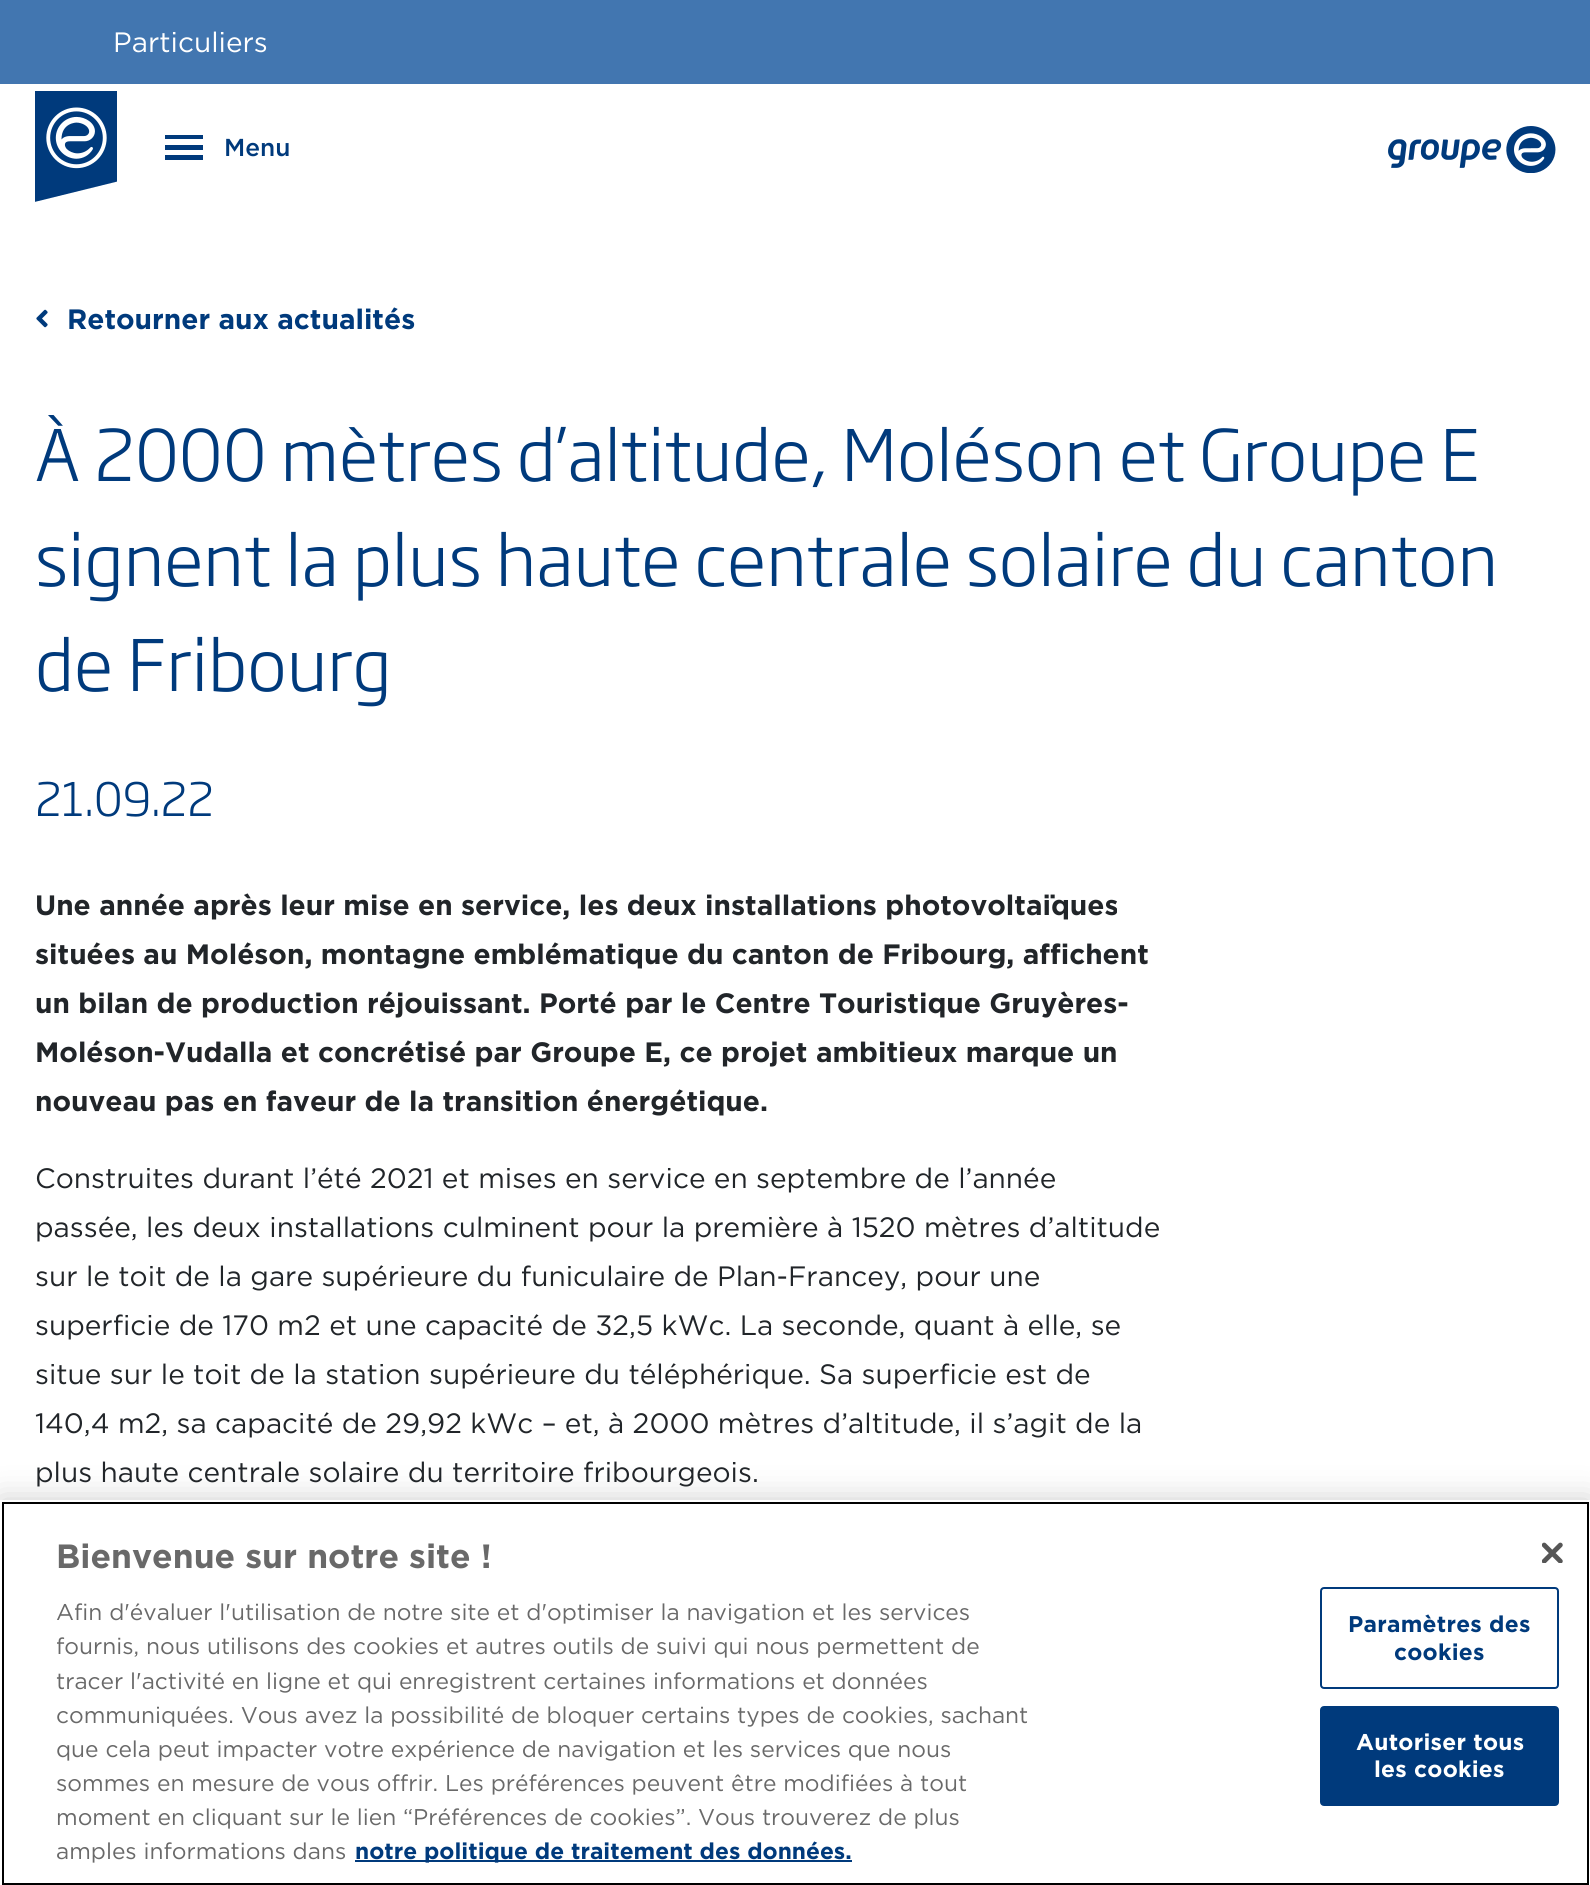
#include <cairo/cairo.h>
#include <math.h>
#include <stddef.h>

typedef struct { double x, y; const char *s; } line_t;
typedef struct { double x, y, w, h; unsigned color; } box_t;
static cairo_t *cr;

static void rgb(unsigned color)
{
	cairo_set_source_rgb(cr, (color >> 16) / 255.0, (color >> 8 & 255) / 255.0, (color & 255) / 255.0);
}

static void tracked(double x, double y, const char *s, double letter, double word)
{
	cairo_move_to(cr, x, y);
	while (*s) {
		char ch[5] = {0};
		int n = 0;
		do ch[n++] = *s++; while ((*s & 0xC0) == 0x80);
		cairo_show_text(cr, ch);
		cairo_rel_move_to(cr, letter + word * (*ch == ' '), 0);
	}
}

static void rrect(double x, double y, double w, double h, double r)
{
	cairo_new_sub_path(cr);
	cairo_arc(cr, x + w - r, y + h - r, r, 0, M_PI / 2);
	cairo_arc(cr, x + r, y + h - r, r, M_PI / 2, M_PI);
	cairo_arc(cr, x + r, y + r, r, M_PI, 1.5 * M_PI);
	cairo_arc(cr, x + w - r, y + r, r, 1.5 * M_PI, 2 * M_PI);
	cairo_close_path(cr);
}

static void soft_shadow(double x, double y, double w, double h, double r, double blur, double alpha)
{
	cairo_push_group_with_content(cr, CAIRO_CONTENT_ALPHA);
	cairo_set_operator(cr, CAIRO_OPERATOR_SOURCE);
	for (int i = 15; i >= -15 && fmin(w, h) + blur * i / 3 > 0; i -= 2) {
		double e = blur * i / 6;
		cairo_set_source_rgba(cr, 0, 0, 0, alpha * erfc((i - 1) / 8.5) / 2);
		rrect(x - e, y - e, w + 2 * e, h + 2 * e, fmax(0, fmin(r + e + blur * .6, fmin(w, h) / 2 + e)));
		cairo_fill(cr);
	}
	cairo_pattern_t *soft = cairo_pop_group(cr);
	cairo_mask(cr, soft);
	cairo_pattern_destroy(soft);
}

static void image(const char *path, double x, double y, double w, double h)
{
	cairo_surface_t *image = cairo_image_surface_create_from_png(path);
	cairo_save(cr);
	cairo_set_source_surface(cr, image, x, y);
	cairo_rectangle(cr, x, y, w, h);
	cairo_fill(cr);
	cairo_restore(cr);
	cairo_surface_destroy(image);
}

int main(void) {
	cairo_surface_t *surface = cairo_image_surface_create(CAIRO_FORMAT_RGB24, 1590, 1885);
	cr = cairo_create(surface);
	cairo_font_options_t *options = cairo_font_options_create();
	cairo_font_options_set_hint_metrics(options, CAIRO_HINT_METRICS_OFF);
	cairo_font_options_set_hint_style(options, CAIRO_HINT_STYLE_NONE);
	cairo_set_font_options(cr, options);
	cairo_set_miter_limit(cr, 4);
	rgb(0xffffff);
	cairo_paint(cr);
	rgb(0x4276b0);
	cairo_rectangle(cr, 0, 0, 1590, 84);
	cairo_fill(cr);
	image("img/1.png", 35, 91, 82, 111);
	{
		static const box_t items[] = {
			{165, 135, 38, 4, 0x003a7c},
			{165, 145, 38, 5, 0x003a7c},
			{165, 155, 38, 5, 0x003a7c},
		};
		for (size_t i = 0; i < sizeof items / sizeof *items; i++) {
			rgb(items[i].color);
			cairo_rectangle(cr, items[i].x, items[i].y, items[i].w, items[i].h);
			cairo_fill(cr);
		}
	}
	image("img/2.png", 1388, 126, 168, 47);
	image("img/3.png", 36, 309, 12, 19);
	rgb(0x000000);
	soft_shadow(0, 1500, 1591, 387, 0, 16, 0.2);
	rgb(0xffffff);
	cairo_rectangle(cr, 0, 1500, 1590, 385);
	cairo_fill(cr);
	cairo_rectangle(cr, 3, 1503, 1585, 381);
	rgb(0x000000);
	cairo_stroke(cr);
	rgb(0x003a7c);
	cairo_rectangle(cr, 355, 1860, 497, 2);
	cairo_fill(cr);
	rrect(1321, 1588, 237, 100, 3);
	cairo_stroke(cr);
	rrect(1321, 1707, 237, 98, 3);
	cairo_fill_preserve(cr);
	cairo_stroke(cr);
	image("img/4.png", 1542, 1542, 21, 21);
	cairo_select_font_face(cr, "Gotham", CAIRO_FONT_SLANT_NORMAL, CAIRO_FONT_WEIGHT_NORMAL);
	cairo_set_font_size(cr, 28);
	rgb(0xffffff);
	cairo_move_to(cr, 113, 52);
	cairo_show_text(cr, "Particuliers");
	cairo_select_font_face(cr, "Gotham Medium", CAIRO_FONT_SLANT_NORMAL, CAIRO_FONT_WEIGHT_NORMAL);
	cairo_set_font_size(cr, 24.5);
	rgb(0x003a7c);
	cairo_move_to(cr, 224, 156);
	cairo_show_text(cr, "Menu");
	cairo_select_font_face(cr, "Gotham", CAIRO_FONT_SLANT_NORMAL, CAIRO_FONT_WEIGHT_BOLD);
	cairo_set_font_size(cr, 28);
	cairo_move_to(cr, 67, 329);
	cairo_show_text(cr, "Retourner aux actualités");
	cairo_select_font_face(cr, "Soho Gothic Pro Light", CAIRO_FONT_SLANT_NORMAL, CAIRO_FONT_WEIGHT_NORMAL);
	cairo_set_font_size(cr, 70);
	{
		static const line_t items[] = {
			{35, 481, "À 2000 mètres d’altitude, Moléson et Groupe E"},
			{35, 586, "signent la plus haute centrale solaire du canton"},
			{35, 691, "de Fribourg"},
		};
		for (size_t i = 0; i < sizeof items / sizeof *items; i++) {
			cairo_move_to(cr, items[i].x, items[i].y);
			cairo_show_text(cr, items[i].s);
		}
	}
	cairo_set_font_size(cr, 45.5);
	cairo_move_to(cr, 35, 816);
	cairo_show_text(cr, "21.09.22");
	cairo_select_font_face(cr, "Gotham", CAIRO_FONT_SLANT_NORMAL, CAIRO_FONT_WEIGHT_BOLD);
	cairo_set_font_size(cr, 28);
	rgb(0x212529);
	{
		static const line_t items[] = {
			{35, 915, "Une année après leur mise en service, les deux installations photovoltaïques"},
			{35, 964, "situées au Moléson, montagne emblématique du canton de Fribourg, affichent"},
			{35, 1013, "un bilan de production réjouissant. Porté par le Centre Touristique Gruyères-"},
			{35, 1062, "Moléson-Vudalla et concrétisé par Groupe E, ce projet ambitieux marque un"},
			{35, 1111, "nouveau pas en faveur de la transition énergétique."},
		};
		for (size_t i = 0; i < sizeof items / sizeof *items; i++) {
			cairo_move_to(cr, items[i].x, items[i].y);
			cairo_show_text(cr, items[i].s);
		}
	}
	cairo_select_font_face(cr, "Gotham", CAIRO_FONT_SLANT_NORMAL, CAIRO_FONT_WEIGHT_NORMAL);
	{
		static const line_t items[] = {
			{35, 1188, "Construites durant l’été 2021 et mises en service en septembre de l’année"},
			{35, 1237, "passée, les deux installations culminent pour la première à 1520 mètres d’altitude"},
			{35, 1286, "sur le toit de la gare supérieure du funiculaire de Plan-Francey, pour une"},
			{35, 1335, "superficie de 170 m2 et une capacité de 32,5 kWc. La seconde, quant à elle, se"},
			{35, 1384, "situe sur le toit de la station supérieure du téléphérique. Sa superficie est de"},
			{35, 1433, "140,4 m2, sa capacité de 29,92 kWc – et, à 2000 mètres d’altitude, il s’agit de la"},
			{35, 1482, "plus haute centrale solaire du territoire fribourgeois."},
		};
		for (size_t i = 0; i < sizeof items / sizeof *items; i++) {
			cairo_move_to(cr, items[i].x, items[i].y);
			cairo_show_text(cr, items[i].s);
		}
	}
	cairo_select_font_face(cr, "Gotham", CAIRO_FONT_SLANT_NORMAL, CAIRO_FONT_WEIGHT_BOLD);
	cairo_set_font_size(cr, 33.6);
	rgb(0x696969);
	cairo_move_to(cr, 56, 1568);
	cairo_show_text(cr, "Bienvenue sur notre site !");
	cairo_select_font_face(cr, "Gotham", CAIRO_FONT_SLANT_NORMAL, CAIRO_FONT_WEIGHT_NORMAL);
	cairo_set_font_size(cr, 22.75);
	{
		static const line_t items[] = {
			{56, 1620, "Afin d'évaluer l'utilisation de notre site et d'optimiser la navigation et les services"},
			{56, 1654, "fournis, nous utilisons des cookies et autres outils de suivi qui nous permettent de"},
			{56, 1689, "tracer l'activité en ligne et qui enregistrent certaines informations et données"},
			{56, 1723, "communiquées. Vous avez la possibilité de bloquer certains types de cookies, sachant"},
			{56, 1757, "que cela peut impacter votre expérience de navigation et les services que nous"},
			{56, 1791, "sommes en mesure de vous offrir. Les préférences peuvent être modifiées à tout"},
			{56, 1825, "moment en cliquant sur le lien “Préférences de cookies”."},
			{698, 1825, "Vous trouverez de plus"},
			{56, 1859, "amples informations dans"},
		};
		for (size_t i = 0; i < sizeof items / sizeof *items; i++) {
			cairo_move_to(cr, items[i].x, items[i].y);
			cairo_show_text(cr, items[i].s);
		}
	}
	cairo_select_font_face(cr, "Gotham", CAIRO_FONT_SLANT_NORMAL, CAIRO_FONT_WEIGHT_BOLD);
	rgb(0x003a7c);
	cairo_move_to(cr, 355, 1859);
	cairo_show_text(cr, "notre politique de traitement des données.");
	tracked(1348, 1632, "Paramètres des", 0.25, 0);
	tracked(1394, 1660, "cookies", 0.25, 0);
	rgb(0xffffff);
	tracked(1356, 1750, "Autoriser tous", 0.25, 0);
	tracked(1374, 1777, "les cookies", 0.25, 0);
	cairo_surface_write_to_png(surface, "page.png");
	cairo_font_options_destroy(options);
	cairo_destroy(cr);
	cairo_surface_destroy(surface);
	return 0;
}
